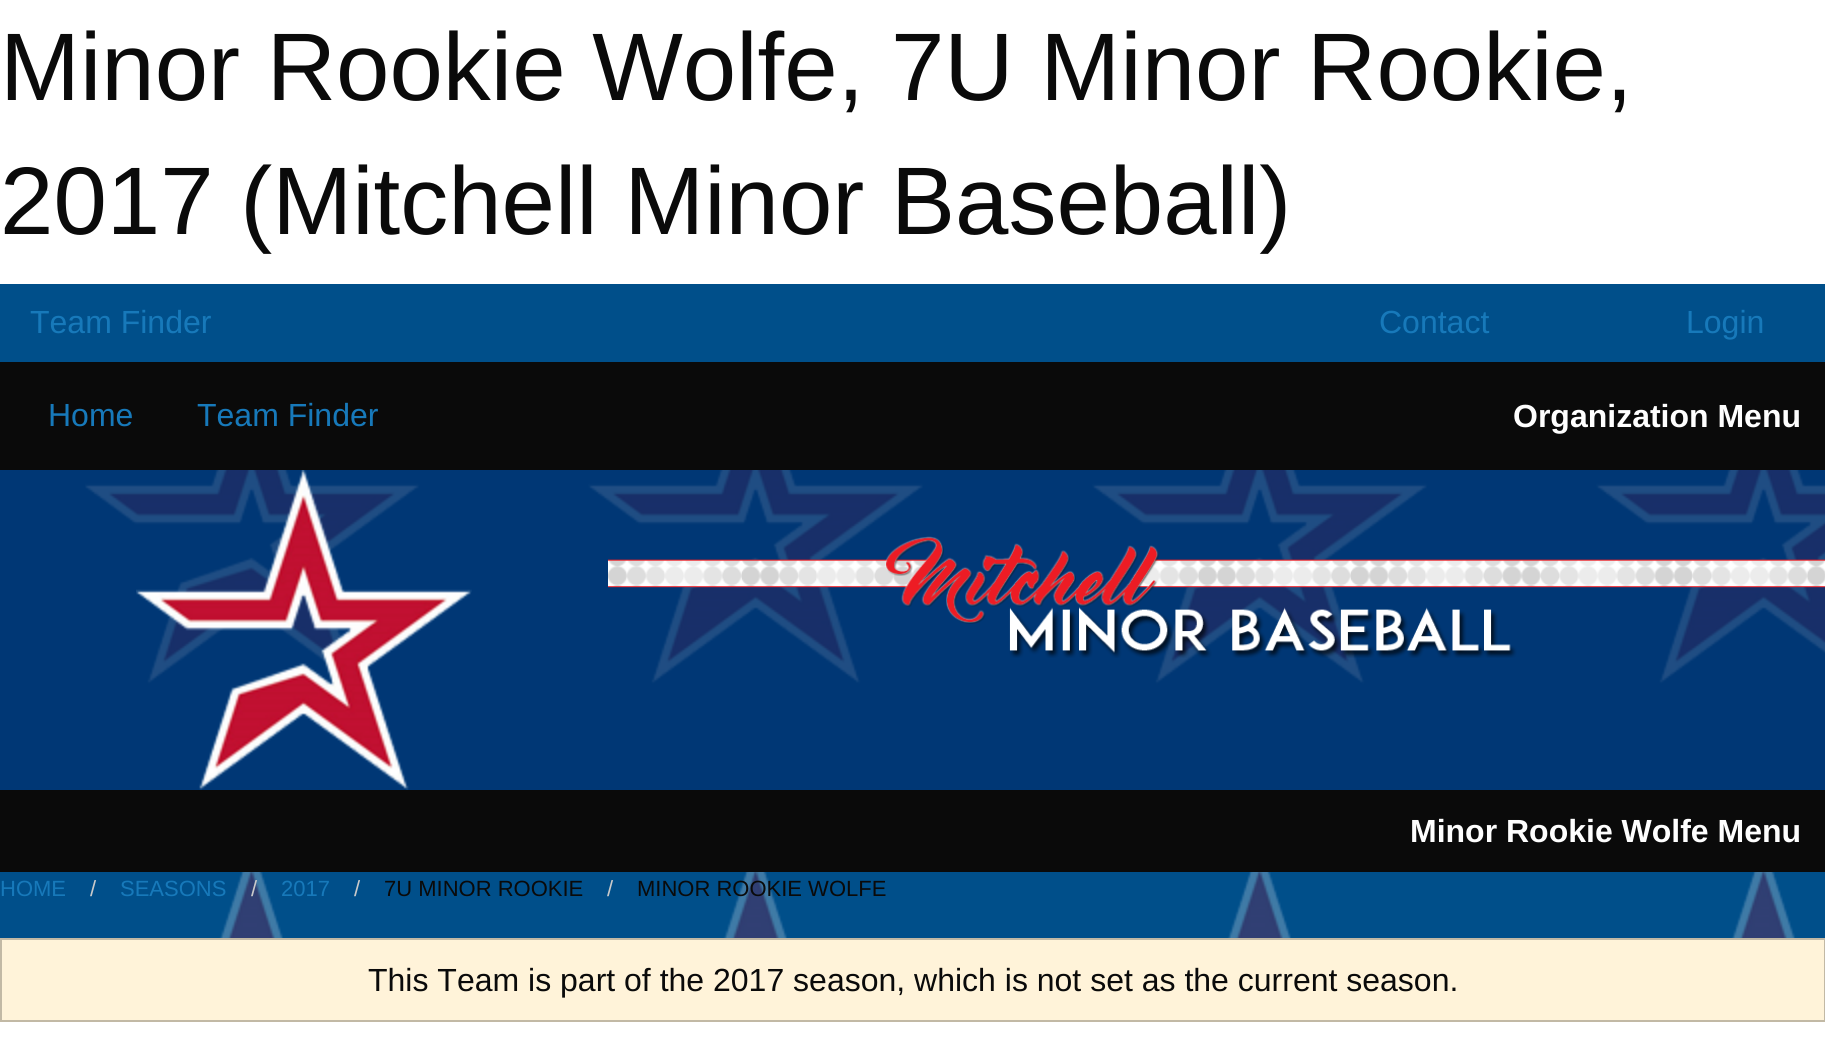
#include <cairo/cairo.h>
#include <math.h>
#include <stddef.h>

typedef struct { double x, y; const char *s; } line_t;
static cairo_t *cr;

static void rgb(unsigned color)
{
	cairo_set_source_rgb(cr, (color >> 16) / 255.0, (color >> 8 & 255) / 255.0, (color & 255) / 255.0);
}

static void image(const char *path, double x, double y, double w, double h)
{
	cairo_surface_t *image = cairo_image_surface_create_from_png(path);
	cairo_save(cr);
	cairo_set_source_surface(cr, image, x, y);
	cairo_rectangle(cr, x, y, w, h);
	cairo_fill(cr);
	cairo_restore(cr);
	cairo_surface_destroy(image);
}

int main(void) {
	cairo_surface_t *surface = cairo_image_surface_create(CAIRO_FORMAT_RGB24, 1825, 1040);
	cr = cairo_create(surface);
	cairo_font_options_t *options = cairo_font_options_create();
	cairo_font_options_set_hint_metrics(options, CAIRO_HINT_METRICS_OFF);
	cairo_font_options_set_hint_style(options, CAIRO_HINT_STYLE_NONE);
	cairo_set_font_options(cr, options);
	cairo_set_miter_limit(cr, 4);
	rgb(0xffffff);
	cairo_paint(cr);
	rgb(0x004f8a);
	cairo_rectangle(cr, 0, 284, 1825, 654);
	cairo_fill(cr);
	image("img/1.png", 85, 470, 1740, 468);
	rgb(0x0a0a0a);
	cairo_rectangle(cr, 0, 362, 1825, 108);
	cairo_fill(cr);
	cairo_set_source_rgba(cr, 0, 0.125, 0.376, 0.5);
	cairo_rectangle(cr, 0, 470, 1825, 320);
	cairo_fill(cr);
	image("img/2.png", 136, 470, 336, 320);
	image("img/3.png", 608, 536, 1217, 122);
	rgb(0x0a0a0a);
	cairo_rectangle(cr, 0, 790, 1825, 82);
	cairo_fill(cr);
	rgb(0xfff3d9);
	cairo_rectangle(cr, 1, 939, 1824, 82);
	cairo_fill_preserve(cr);
	rgb(0xc2b9a5);
	cairo_stroke(cr);
	cairo_select_font_face(cr, "Liberation Sans", CAIRO_FONT_SLANT_NORMAL, CAIRO_FONT_WEIGHT_NORMAL);
	cairo_set_font_size(cr, 96);
	rgb(0x0a0a0a);
	cairo_move_to(cr, 0, 100);
	cairo_show_text(cr, "Minor Rookie Wolfe, 7U Minor Rookie,");
	cairo_move_to(cr, 0, 234);
	cairo_show_text(cr, "2017 (Mitchell Minor Baseball)");
	cairo_set_font_size(cr, 32);
	rgb(0x1779ba);
	{
		static const line_t items[] = {
			{30, 333, "Team Finder"},
			{1379, 333, "Contact"},
			{1686, 333, "Login"},
			{48, 426, "Home"},
			{197, 426, "Team Finder"},
		};
		for (size_t i = 0; i < sizeof items / sizeof *items; i++) {
			cairo_move_to(cr, items[i].x, items[i].y);
			cairo_show_text(cr, items[i].s);
		}
	}
	cairo_select_font_face(cr, "Liberation Sans", CAIRO_FONT_SLANT_NORMAL, CAIRO_FONT_WEIGHT_BOLD);
	rgb(0xfefefe);
	cairo_move_to(cr, 1513, 427);
	cairo_show_text(cr, "Organization Menu");
	cairo_move_to(cr, 1410, 842);
	cairo_show_text(cr, "Minor Rookie Wolfe Menu");
	cairo_select_font_face(cr, "Liberation Sans", CAIRO_FONT_SLANT_NORMAL, CAIRO_FONT_WEIGHT_NORMAL);
	cairo_set_font_size(cr, 22);
	rgb(0x1779ba);
	cairo_move_to(cr, 0, 896);
	cairo_show_text(cr, "HOME");
	rgb(0xcacaca);
	cairo_move_to(cr, 90, 896);
	cairo_show_text(cr, "/");
	rgb(0x1779ba);
	cairo_move_to(cr, 120, 896);
	cairo_show_text(cr, "SEASONS");
	rgb(0xcacaca);
	cairo_move_to(cr, 251, 896);
	cairo_show_text(cr, "/");
	rgb(0x1779ba);
	cairo_move_to(cr, 281, 896);
	cairo_show_text(cr, "2017");
	rgb(0xcacaca);
	cairo_move_to(cr, 354, 896);
	cairo_show_text(cr, "/");
	rgb(0x0a0a0a);
	cairo_move_to(cr, 384, 896);
	cairo_show_text(cr, "7U MINOR ROOKIE");
	rgb(0xcacaca);
	cairo_move_to(cr, 607, 896);
	cairo_show_text(cr, "/");
	rgb(0x0a0a0a);
	cairo_move_to(cr, 637, 896);
	cairo_show_text(cr, "MINOR ROOKIE WOLFE");
	cairo_set_font_size(cr, 32);
	cairo_move_to(cr, 368, 991);
	cairo_show_text(cr, "This Team is part of the 2017 season, which is not set as the current season.");
	cairo_surface_write_to_png(surface, "page.png");
	cairo_font_options_destroy(options);
	cairo_destroy(cr);
	cairo_surface_destroy(surface);
	return 0;
}
